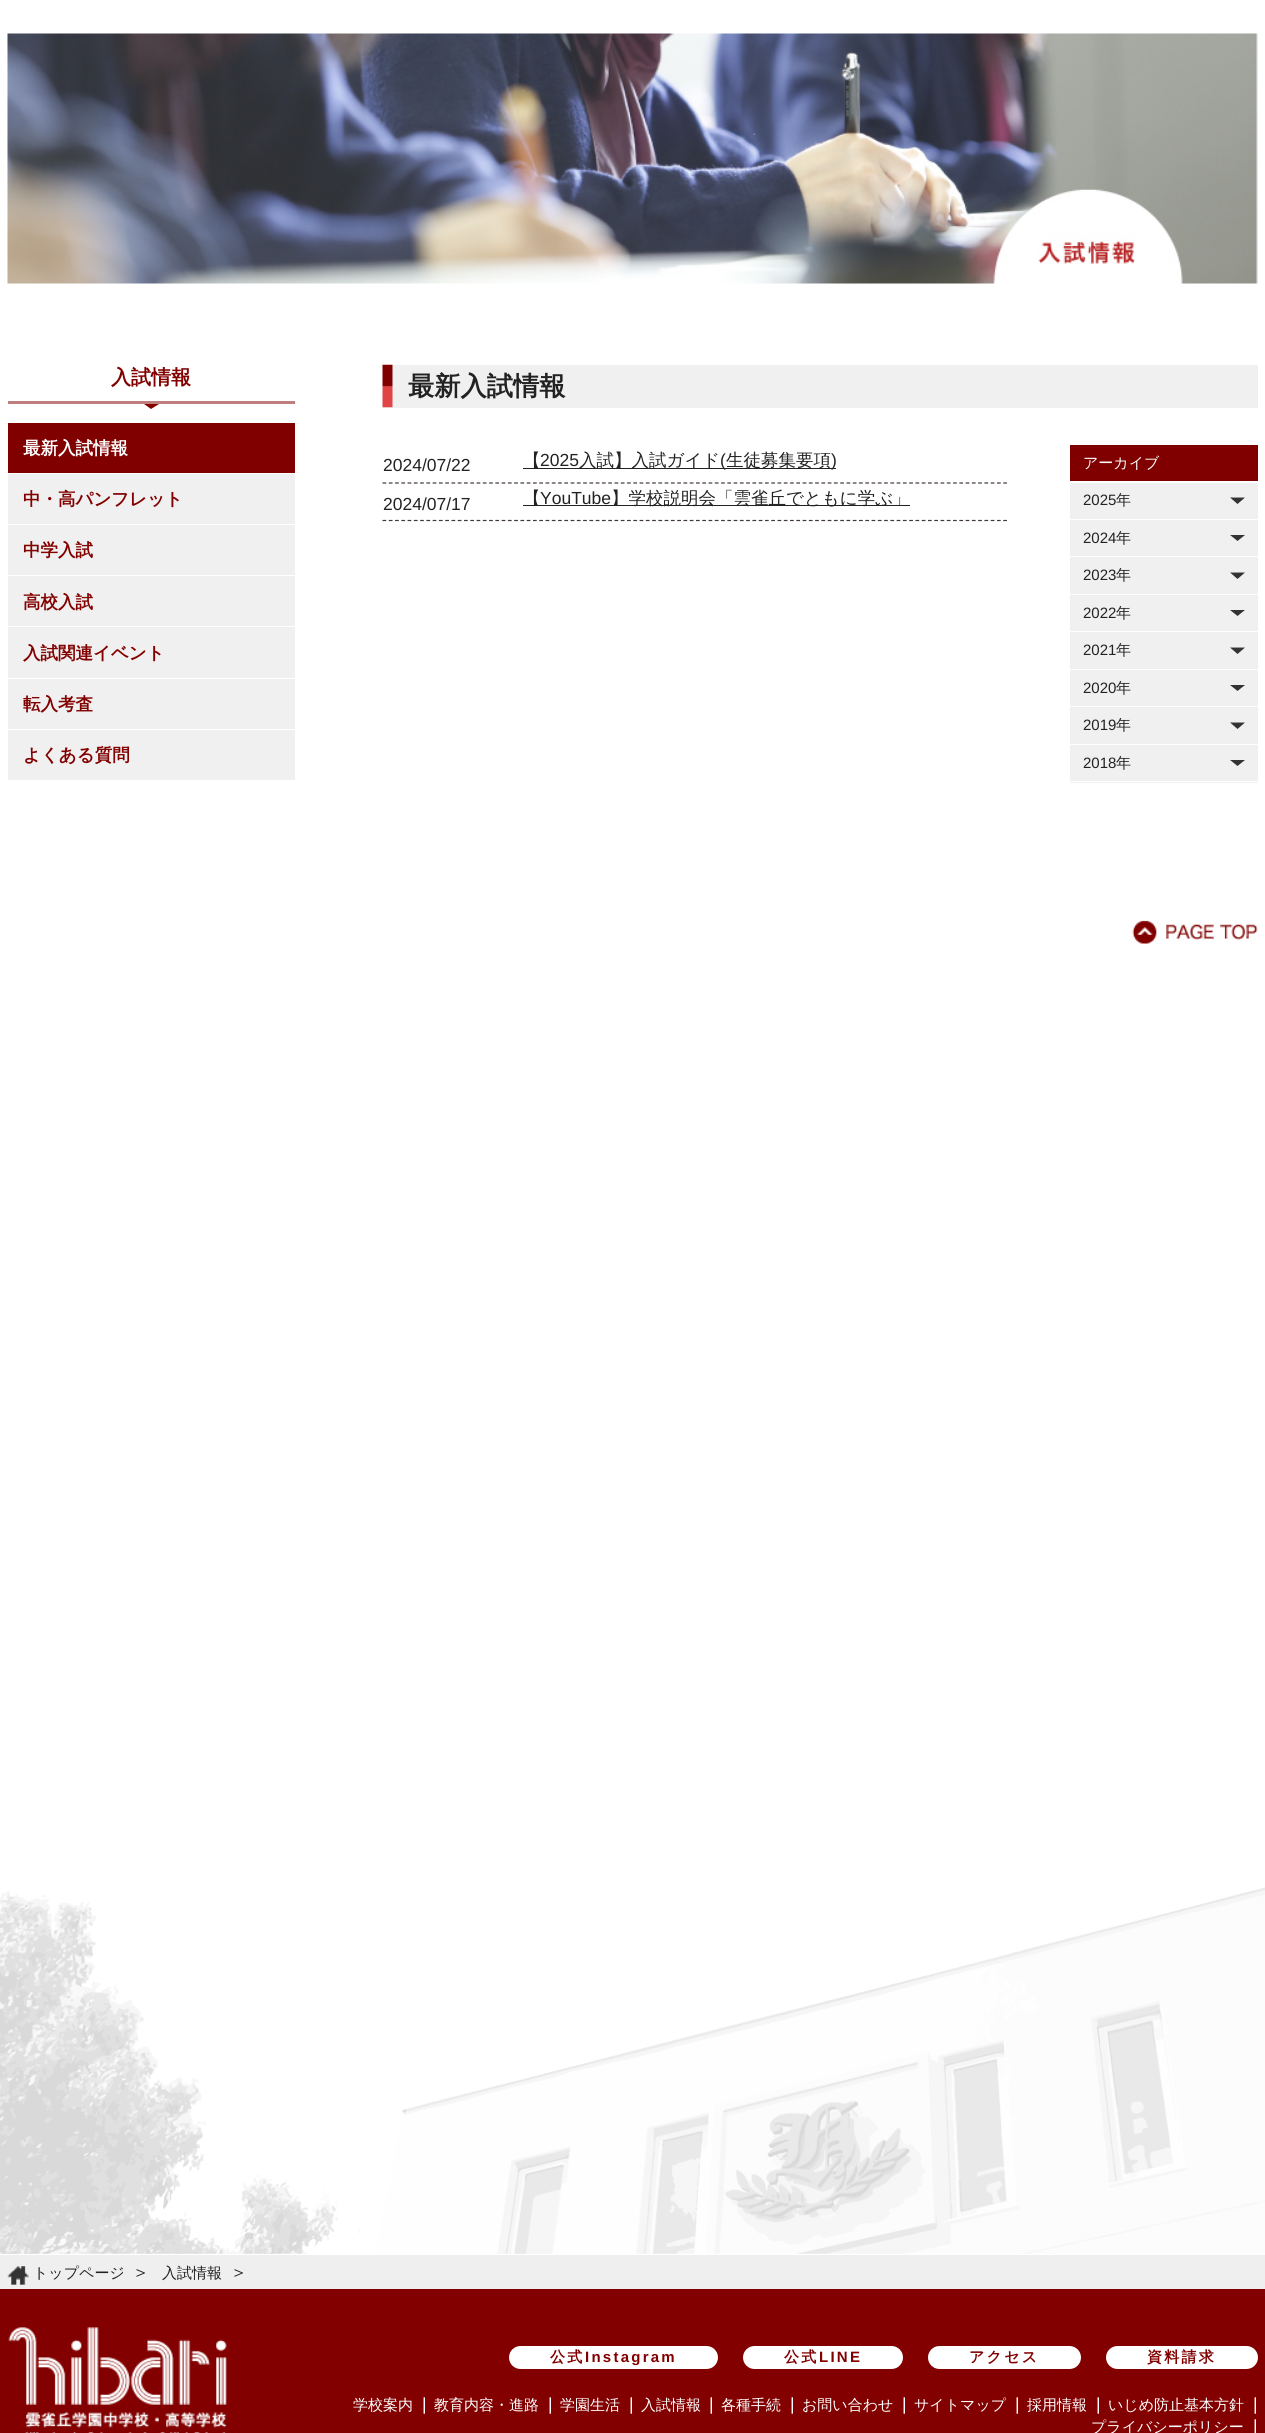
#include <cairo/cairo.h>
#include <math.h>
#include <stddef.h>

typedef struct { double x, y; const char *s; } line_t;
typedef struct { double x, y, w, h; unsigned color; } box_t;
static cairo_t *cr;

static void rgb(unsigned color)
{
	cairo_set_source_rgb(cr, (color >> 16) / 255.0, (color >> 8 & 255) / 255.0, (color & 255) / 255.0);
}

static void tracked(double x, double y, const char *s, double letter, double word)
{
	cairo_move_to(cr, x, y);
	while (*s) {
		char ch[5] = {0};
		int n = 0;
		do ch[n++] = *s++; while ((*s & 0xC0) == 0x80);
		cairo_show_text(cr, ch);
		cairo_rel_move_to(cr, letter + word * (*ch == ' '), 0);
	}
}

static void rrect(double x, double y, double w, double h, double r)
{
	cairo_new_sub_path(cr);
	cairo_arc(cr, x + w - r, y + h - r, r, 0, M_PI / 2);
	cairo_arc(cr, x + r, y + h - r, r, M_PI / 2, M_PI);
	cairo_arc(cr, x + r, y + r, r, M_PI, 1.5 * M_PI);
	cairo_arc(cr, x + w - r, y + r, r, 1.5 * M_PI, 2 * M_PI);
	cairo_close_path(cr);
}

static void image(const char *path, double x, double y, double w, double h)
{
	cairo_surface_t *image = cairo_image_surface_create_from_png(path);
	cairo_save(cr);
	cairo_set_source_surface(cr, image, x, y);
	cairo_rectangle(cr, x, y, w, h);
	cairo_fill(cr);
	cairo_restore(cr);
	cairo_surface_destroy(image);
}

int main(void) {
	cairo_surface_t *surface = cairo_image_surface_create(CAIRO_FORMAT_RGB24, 1265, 2433);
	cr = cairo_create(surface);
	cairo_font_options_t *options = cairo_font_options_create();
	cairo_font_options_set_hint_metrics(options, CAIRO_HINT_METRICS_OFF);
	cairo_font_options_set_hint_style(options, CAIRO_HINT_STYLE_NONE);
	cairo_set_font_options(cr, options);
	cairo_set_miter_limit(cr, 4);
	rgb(0xffffff);
	cairo_paint(cr);
	image("img/1.png", 0, 1887, 1265, 367);
	image("img/2.png", 7, 33, 1251, 251);
	rgb(0x820000);
	cairo_new_path(cr);
	cairo_move_to(cr, 144, 404);
	cairo_line_to(cr, 159, 404);
	cairo_line_to(cr, 151, 409);
	cairo_close_path(cr);
	cairo_fill(cr);
	{
		static const box_t items[] = {
			{8, 401, 287, 3, 0xbf7f7f},
			{8, 474, 287, 306, 0xf0f0f0},
			{8, 423, 287, 50, 0x800000},
			{8, 524, 287, 1, 0xffffff},
			{8, 575, 287, 1, 0xffffff},
			{8, 626, 287, 1, 0xffffff},
			{8, 678, 287, 1, 0xffffff},
			{8, 729, 287, 1, 0xffffff},
			{383, 365, 875, 43, 0xf0f0f0},
		};
		for (size_t i = 0; i < sizeof items / sizeof *items; i++) {
			rgb(items[i].color);
			cairo_rectangle(cr, items[i].x, items[i].y, items[i].w, items[i].h);
			cairo_fill(cr);
		}
	}
	image("img/3.png", 382, 364, 11, 44);
	cairo_new_path(cr);
	cairo_move_to(cr, 382.5, 483);
	cairo_line_to(cr, 1007.5, 483);
	rgb(0x423a38);
	cairo_set_line_width(cr, 1.2);
	cairo_set_dash(cr, (double[]){3.75, 2.52}, 2, 0);
	cairo_stroke(cr);
	rgb(0x222222);
	cairo_rectangle(cr, 523, 468, 313, 1);
	cairo_fill(cr);
	cairo_new_path(cr);
	cairo_move_to(cr, 382.5, 520.5);
	cairo_line_to(cr, 1007.5, 520.5);
	rgb(0x423a38);
	cairo_stroke(cr);
	{
		static const box_t items[] = {
			{523, 505, 387, 1, 0x222222},
			{1070, 445, 188, 36, 0x800000},
			{1070, 483, 188, 300, 0xf0f0f0},
			{1070, 519, 188, 1, 0xffffff},
		};
		for (size_t i = 0; i < sizeof items / sizeof *items; i++) {
			rgb(items[i].color);
			cairo_rectangle(cr, items[i].x, items[i].y, items[i].w, items[i].h);
			cairo_fill(cr);
		}
	}
	rgb(0x333333);
	cairo_new_path(cr);
	cairo_move_to(cr, 1230, 497.5);
	cairo_line_to(cr, 1245, 497.5);
	cairo_line_to(cr, 1237.5, 504);
	cairo_close_path(cr);
	cairo_fill(cr);
	rgb(0xffffff);
	cairo_rectangle(cr, 1070, 556, 188, 1);
	cairo_fill(cr);
	rgb(0x333333);
	cairo_new_path(cr);
	cairo_move_to(cr, 1230, 535);
	cairo_line_to(cr, 1245, 535);
	cairo_line_to(cr, 1237.5, 541);
	cairo_close_path(cr);
	cairo_fill(cr);
	rgb(0xffffff);
	cairo_rectangle(cr, 1070, 594, 188, 1);
	cairo_fill(cr);
	rgb(0x333333);
	cairo_new_path(cr);
	cairo_move_to(cr, 1230, 572.5);
	cairo_line_to(cr, 1245, 572.5);
	cairo_line_to(cr, 1237.5, 579);
	cairo_close_path(cr);
	cairo_fill(cr);
	rgb(0xffffff);
	cairo_rectangle(cr, 1070, 631, 188, 1);
	cairo_fill(cr);
	rgb(0x333333);
	cairo_new_path(cr);
	cairo_move_to(cr, 1230, 610);
	cairo_line_to(cr, 1245, 610);
	cairo_line_to(cr, 1237.5, 616);
	cairo_close_path(cr);
	cairo_fill(cr);
	rgb(0xffffff);
	cairo_rectangle(cr, 1070, 669, 188, 1);
	cairo_fill(cr);
	rgb(0x333333);
	cairo_new_path(cr);
	cairo_move_to(cr, 1230, 647.5);
	cairo_line_to(cr, 1245, 647.5);
	cairo_line_to(cr, 1237.5, 654);
	cairo_close_path(cr);
	cairo_fill(cr);
	rgb(0xffffff);
	cairo_rectangle(cr, 1070, 706, 188, 1);
	cairo_fill(cr);
	rgb(0x333333);
	cairo_new_path(cr);
	cairo_move_to(cr, 1230, 685);
	cairo_line_to(cr, 1245, 685);
	cairo_line_to(cr, 1237.5, 691);
	cairo_close_path(cr);
	cairo_fill(cr);
	rgb(0xffffff);
	cairo_rectangle(cr, 1070, 744, 188, 1);
	cairo_fill(cr);
	rgb(0x333333);
	cairo_new_path(cr);
	cairo_move_to(cr, 1230, 722.5);
	cairo_line_to(cr, 1245, 722.5);
	cairo_line_to(cr, 1237.5, 729);
	cairo_close_path(cr);
	cairo_fill(cr);
	rgb(0xffffff);
	cairo_rectangle(cr, 1070, 781, 188, 1);
	cairo_fill(cr);
	rgb(0x333333);
	cairo_new_path(cr);
	cairo_move_to(cr, 1230, 760);
	cairo_line_to(cr, 1245, 760);
	cairo_line_to(cr, 1237.5, 766);
	cairo_close_path(cr);
	cairo_fill(cr);
	image("img/4.png", 1132, 920, 126, 24);
	rgb(0xefefef);
	cairo_rectangle(cr, 0, 2255, 1265, 34);
	cairo_fill(cr);
	image("img/5.png", 7, 2266, 22, 19);
	rgb(0x820000);
	cairo_rectangle(cr, 0, 2289, 1265, 144);
	cairo_fill(cr);
	image("img/6.png", 8, 2327, 219, 106);
	rgb(0xffffff);
	rrect(509, 2346, 209, 23, 11.5);
	cairo_fill(cr);
	rrect(743, 2346, 160, 23, 11.5);
	cairo_fill(cr);
	rrect(928, 2346, 153, 23, 11.5);
	cairo_fill(cr);
	rrect(1106, 2346, 152, 23, 11.5);
	cairo_fill(cr);
	cairo_select_font_face(cr, "WenQuanYi Zen Hei", CAIRO_FONT_SLANT_NORMAL, CAIRO_FONT_WEIGHT_BOLD);
	cairo_set_font_size(cr, 20);
	rgb(0x820000);
	cairo_move_to(cr, 111, 384);
	cairo_show_text(cr, "入試情報");
	cairo_set_font_size(cr, 17.5);
	rgb(0xffffff);
	cairo_move_to(cr, 23, 454);
	cairo_show_text(cr, "最新入試情報");
	rgb(0x820000);
	{
		static const line_t items[] = {
			{23, 505, "中・高パンフレット"},
			{23, 556, "中学入試"},
			{23, 608, "高校入試"},
			{23, 659, "入試関連イベント"},
			{23, 710, "転入考査"},
			{23, 761, "よくある質問"},
		};
		for (size_t i = 0; i < sizeof items / sizeof *items; i++) {
			cairo_move_to(cr, items[i].x, items[i].y);
			cairo_show_text(cr, items[i].s);
		}
	}
	cairo_set_font_size(cr, 26.25);
	rgb(0x222222);
	cairo_move_to(cr, 408, 395);
	cairo_show_text(cr, "最新入試情報");
	cairo_select_font_face(cr, "Liberation Sans", CAIRO_FONT_SLANT_NORMAL, CAIRO_FONT_WEIGHT_NORMAL);
	cairo_set_font_size(cr, 17.5);
	cairo_move_to(cr, 383, 471);
	cairo_show_text(cr, "2024/07/22");
	cairo_select_font_face(cr, "WenQuanYi Zen Hei Medium", CAIRO_FONT_SLANT_NORMAL, CAIRO_FONT_WEIGHT_NORMAL);
	cairo_move_to(cr, 523, 466);
	cairo_show_text(cr, "【");
	cairo_select_font_face(cr, "Liberation Sans", CAIRO_FONT_SLANT_NORMAL, CAIRO_FONT_WEIGHT_NORMAL);
	cairo_move_to(cr, 540, 466);
	cairo_show_text(cr, "2025");
	cairo_select_font_face(cr, "WenQuanYi Zen Hei Medium", CAIRO_FONT_SLANT_NORMAL, CAIRO_FONT_WEIGHT_NORMAL);
	cairo_move_to(cr, 579, 466);
	cairo_show_text(cr, "入試】入試ガイド");
	cairo_select_font_face(cr, "Liberation Sans", CAIRO_FONT_SLANT_NORMAL, CAIRO_FONT_WEIGHT_NORMAL);
	cairo_move_to(cr, 720, 466);
	cairo_show_text(cr, "(");
	cairo_select_font_face(cr, "WenQuanYi Zen Hei Medium", CAIRO_FONT_SLANT_NORMAL, CAIRO_FONT_WEIGHT_NORMAL);
	cairo_move_to(cr, 726, 466);
	cairo_show_text(cr, "生徒募集要項");
	cairo_select_font_face(cr, "Liberation Sans", CAIRO_FONT_SLANT_NORMAL, CAIRO_FONT_WEIGHT_NORMAL);
	cairo_move_to(cr, 831, 466);
	cairo_show_text(cr, ")");
	cairo_move_to(cr, 383, 510);
	cairo_show_text(cr, "2024/07/17");
	cairo_select_font_face(cr, "WenQuanYi Zen Hei Medium", CAIRO_FONT_SLANT_NORMAL, CAIRO_FONT_WEIGHT_NORMAL);
	cairo_move_to(cr, 523, 504);
	cairo_show_text(cr, "【");
	cairo_select_font_face(cr, "Liberation Sans", CAIRO_FONT_SLANT_NORMAL, CAIRO_FONT_WEIGHT_NORMAL);
	cairo_move_to(cr, 540, 504);
	cairo_show_text(cr, "YouTube");
	cairo_select_font_face(cr, "WenQuanYi Zen Hei Medium", CAIRO_FONT_SLANT_NORMAL, CAIRO_FONT_WEIGHT_NORMAL);
	cairo_move_to(cr, 611, 504);
	cairo_show_text(cr, "】学校説明会「雲雀丘でともに学ぶ」");
	cairo_set_font_size(cr, 15);
	rgb(0xffffff);
	cairo_move_to(cr, 1083, 468);
	cairo_show_text(cr, "アーカイブ");
	cairo_select_font_face(cr, "Liberation Sans", CAIRO_FONT_SLANT_NORMAL, CAIRO_FONT_WEIGHT_NORMAL);
	rgb(0x222222);
	cairo_move_to(cr, 1083, 505);
	cairo_show_text(cr, "2025");
	cairo_select_font_face(cr, "WenQuanYi Zen Hei Medium", CAIRO_FONT_SLANT_NORMAL, CAIRO_FONT_WEIGHT_NORMAL);
	cairo_move_to(cr, 1116, 505);
	cairo_show_text(cr, "年");
	cairo_select_font_face(cr, "Liberation Sans", CAIRO_FONT_SLANT_NORMAL, CAIRO_FONT_WEIGHT_NORMAL);
	cairo_move_to(cr, 1083, 543);
	cairo_show_text(cr, "2024");
	cairo_select_font_face(cr, "WenQuanYi Zen Hei Medium", CAIRO_FONT_SLANT_NORMAL, CAIRO_FONT_WEIGHT_NORMAL);
	cairo_move_to(cr, 1116, 543);
	cairo_show_text(cr, "年");
	cairo_select_font_face(cr, "Liberation Sans", CAIRO_FONT_SLANT_NORMAL, CAIRO_FONT_WEIGHT_NORMAL);
	cairo_move_to(cr, 1083, 580);
	cairo_show_text(cr, "2023");
	cairo_select_font_face(cr, "WenQuanYi Zen Hei Medium", CAIRO_FONT_SLANT_NORMAL, CAIRO_FONT_WEIGHT_NORMAL);
	cairo_move_to(cr, 1116, 580);
	cairo_show_text(cr, "年");
	cairo_select_font_face(cr, "Liberation Sans", CAIRO_FONT_SLANT_NORMAL, CAIRO_FONT_WEIGHT_NORMAL);
	cairo_move_to(cr, 1083, 618);
	cairo_show_text(cr, "2022");
	cairo_select_font_face(cr, "WenQuanYi Zen Hei Medium", CAIRO_FONT_SLANT_NORMAL, CAIRO_FONT_WEIGHT_NORMAL);
	cairo_move_to(cr, 1116, 618);
	cairo_show_text(cr, "年");
	cairo_select_font_face(cr, "Liberation Sans", CAIRO_FONT_SLANT_NORMAL, CAIRO_FONT_WEIGHT_NORMAL);
	cairo_move_to(cr, 1083, 655);
	cairo_show_text(cr, "2021");
	cairo_select_font_face(cr, "WenQuanYi Zen Hei Medium", CAIRO_FONT_SLANT_NORMAL, CAIRO_FONT_WEIGHT_NORMAL);
	cairo_move_to(cr, 1116, 655);
	cairo_show_text(cr, "年");
	cairo_select_font_face(cr, "Liberation Sans", CAIRO_FONT_SLANT_NORMAL, CAIRO_FONT_WEIGHT_NORMAL);
	cairo_move_to(cr, 1083, 693);
	cairo_show_text(cr, "2020");
	cairo_select_font_face(cr, "WenQuanYi Zen Hei Medium", CAIRO_FONT_SLANT_NORMAL, CAIRO_FONT_WEIGHT_NORMAL);
	cairo_move_to(cr, 1116, 693);
	cairo_show_text(cr, "年");
	cairo_select_font_face(cr, "Liberation Sans", CAIRO_FONT_SLANT_NORMAL, CAIRO_FONT_WEIGHT_NORMAL);
	cairo_move_to(cr, 1083, 730);
	cairo_show_text(cr, "2019");
	cairo_select_font_face(cr, "WenQuanYi Zen Hei Medium", CAIRO_FONT_SLANT_NORMAL, CAIRO_FONT_WEIGHT_NORMAL);
	cairo_move_to(cr, 1116, 730);
	cairo_show_text(cr, "年");
	cairo_select_font_face(cr, "Liberation Sans", CAIRO_FONT_SLANT_NORMAL, CAIRO_FONT_WEIGHT_NORMAL);
	cairo_move_to(cr, 1083, 768);
	cairo_show_text(cr, "2018");
	cairo_select_font_face(cr, "WenQuanYi Zen Hei Medium", CAIRO_FONT_SLANT_NORMAL, CAIRO_FONT_WEIGHT_NORMAL);
	cairo_move_to(cr, 1116, 768);
	cairo_show_text(cr, "年");
	cairo_move_to(cr, 33, 2278);
	cairo_show_text(cr, "トップページ");
	cairo_set_font_size(cr, 17.5);
	cairo_move_to(cr, 132, 2278);
	cairo_show_text(cr, "＞");
	cairo_set_font_size(cr, 15);
	cairo_move_to(cr, 162, 2278);
	cairo_show_text(cr, "入試情報");
	cairo_set_font_size(cr, 17.5);
	cairo_move_to(cr, 230, 2278);
	cairo_show_text(cr, "＞");
	cairo_select_font_face(cr, "WenQuanYi Zen Hei", CAIRO_FONT_SLANT_NORMAL, CAIRO_FONT_WEIGHT_BOLD);
	cairo_set_font_size(cr, 15);
	rgb(0x820000);
	tracked(550, 2362, "公式", 2.25, 0);
	cairo_select_font_face(cr, "Liberation Sans", CAIRO_FONT_SLANT_NORMAL, CAIRO_FONT_WEIGHT_BOLD);
	tracked(585, 2362, "Instagram", 2.25, 0);
	cairo_select_font_face(cr, "WenQuanYi Zen Hei", CAIRO_FONT_SLANT_NORMAL, CAIRO_FONT_WEIGHT_BOLD);
	tracked(784, 2362, "公式", 2.25, 0);
	cairo_select_font_face(cr, "Liberation Sans", CAIRO_FONT_SLANT_NORMAL, CAIRO_FONT_WEIGHT_BOLD);
	tracked(819, 2362, "LINE", 2.25, 0);
	cairo_select_font_face(cr, "WenQuanYi Zen Hei", CAIRO_FONT_SLANT_NORMAL, CAIRO_FONT_WEIGHT_BOLD);
	tracked(969, 2362, "アクセス", 2.25, 0);
	tracked(1147, 2362, "資料請求", 2.25, 0);
	cairo_select_font_face(cr, "WenQuanYi Zen Hei Medium", CAIRO_FONT_SLANT_NORMAL, CAIRO_FONT_WEIGHT_NORMAL);
	rgb(0xffffff);
	cairo_move_to(cr, 353, 2410);
	cairo_show_text(cr, "学校案内");
	cairo_select_font_face(cr, "Liberation Sans", CAIRO_FONT_SLANT_NORMAL, CAIRO_FONT_WEIGHT_NORMAL);
	cairo_set_font_size(cr, 17.5);
	cairo_move_to(cr, 422, 2410);
	cairo_show_text(cr, "|");
	cairo_select_font_face(cr, "WenQuanYi Zen Hei Medium", CAIRO_FONT_SLANT_NORMAL, CAIRO_FONT_WEIGHT_NORMAL);
	cairo_set_font_size(cr, 15);
	cairo_move_to(cr, 434, 2410);
	cairo_show_text(cr, "教育内容・進路");
	cairo_select_font_face(cr, "Liberation Sans", CAIRO_FONT_SLANT_NORMAL, CAIRO_FONT_WEIGHT_NORMAL);
	cairo_set_font_size(cr, 17.5);
	cairo_move_to(cr, 548, 2410);
	cairo_show_text(cr, "|");
	cairo_select_font_face(cr, "WenQuanYi Zen Hei Medium", CAIRO_FONT_SLANT_NORMAL, CAIRO_FONT_WEIGHT_NORMAL);
	cairo_set_font_size(cr, 15);
	cairo_move_to(cr, 560, 2410);
	cairo_show_text(cr, "学園生活");
	cairo_select_font_face(cr, "Liberation Sans", CAIRO_FONT_SLANT_NORMAL, CAIRO_FONT_WEIGHT_NORMAL);
	cairo_set_font_size(cr, 17.5);
	cairo_move_to(cr, 629, 2410);
	cairo_show_text(cr, "|");
	cairo_select_font_face(cr, "WenQuanYi Zen Hei Medium", CAIRO_FONT_SLANT_NORMAL, CAIRO_FONT_WEIGHT_NORMAL);
	cairo_set_font_size(cr, 15);
	cairo_move_to(cr, 641, 2410);
	cairo_show_text(cr, "入試情報");
	cairo_select_font_face(cr, "Liberation Sans", CAIRO_FONT_SLANT_NORMAL, CAIRO_FONT_WEIGHT_NORMAL);
	cairo_set_font_size(cr, 17.5);
	cairo_move_to(cr, 709, 2410);
	cairo_show_text(cr, "|");
	cairo_select_font_face(cr, "WenQuanYi Zen Hei Medium", CAIRO_FONT_SLANT_NORMAL, CAIRO_FONT_WEIGHT_NORMAL);
	cairo_set_font_size(cr, 15);
	cairo_move_to(cr, 721, 2410);
	cairo_show_text(cr, "各種手続");
	cairo_select_font_face(cr, "Liberation Sans", CAIRO_FONT_SLANT_NORMAL, CAIRO_FONT_WEIGHT_NORMAL);
	cairo_set_font_size(cr, 17.5);
	cairo_move_to(cr, 790, 2410);
	cairo_show_text(cr, "|");
	cairo_select_font_face(cr, "WenQuanYi Zen Hei Medium", CAIRO_FONT_SLANT_NORMAL, CAIRO_FONT_WEIGHT_NORMAL);
	cairo_set_font_size(cr, 15);
	cairo_move_to(cr, 802, 2410);
	cairo_show_text(cr, "お問い合わせ");
	cairo_select_font_face(cr, "Liberation Sans", CAIRO_FONT_SLANT_NORMAL, CAIRO_FONT_WEIGHT_NORMAL);
	cairo_set_font_size(cr, 17.5);
	cairo_move_to(cr, 902, 2410);
	cairo_show_text(cr, "|");
	cairo_select_font_face(cr, "WenQuanYi Zen Hei Medium", CAIRO_FONT_SLANT_NORMAL, CAIRO_FONT_WEIGHT_NORMAL);
	cairo_set_font_size(cr, 15);
	cairo_move_to(cr, 914, 2410);
	cairo_show_text(cr, "サイトマップ");
	cairo_select_font_face(cr, "Liberation Sans", CAIRO_FONT_SLANT_NORMAL, CAIRO_FONT_WEIGHT_NORMAL);
	cairo_set_font_size(cr, 17.5);
	cairo_move_to(cr, 1015, 2410);
	cairo_show_text(cr, "|");
	cairo_select_font_face(cr, "WenQuanYi Zen Hei Medium", CAIRO_FONT_SLANT_NORMAL, CAIRO_FONT_WEIGHT_NORMAL);
	cairo_set_font_size(cr, 15);
	cairo_move_to(cr, 1027, 2410);
	cairo_show_text(cr, "採用情報");
	cairo_select_font_face(cr, "Liberation Sans", CAIRO_FONT_SLANT_NORMAL, CAIRO_FONT_WEIGHT_NORMAL);
	cairo_set_font_size(cr, 17.5);
	cairo_move_to(cr, 1096, 2410);
	cairo_show_text(cr, "|");
	cairo_select_font_face(cr, "WenQuanYi Zen Hei Medium", CAIRO_FONT_SLANT_NORMAL, CAIRO_FONT_WEIGHT_NORMAL);
	cairo_set_font_size(cr, 15);
	cairo_move_to(cr, 1108, 2410);
	cairo_show_text(cr, "いじめ防止基本方針");
	cairo_select_font_face(cr, "Liberation Sans", CAIRO_FONT_SLANT_NORMAL, CAIRO_FONT_WEIGHT_NORMAL);
	cairo_set_font_size(cr, 17.5);
	cairo_move_to(cr, 1253, 2410);
	cairo_show_text(cr, "|");
	cairo_select_font_face(cr, "WenQuanYi Zen Hei Medium", CAIRO_FONT_SLANT_NORMAL, CAIRO_FONT_WEIGHT_NORMAL);
	cairo_set_font_size(cr, 15);
	cairo_move_to(cr, 1091, 2432);
	cairo_show_text(cr, "プライバシーポリシー");
	cairo_select_font_face(cr, "Liberation Sans", CAIRO_FONT_SLANT_NORMAL, CAIRO_FONT_WEIGHT_NORMAL);
	cairo_set_font_size(cr, 17.5);
	cairo_move_to(cr, 1253, 2432);
	cairo_show_text(cr, "|");
	cairo_surface_write_to_png(surface, "page.png");
	cairo_font_options_destroy(options);
	cairo_destroy(cr);
	cairo_surface_destroy(surface);
	return 0;
}
